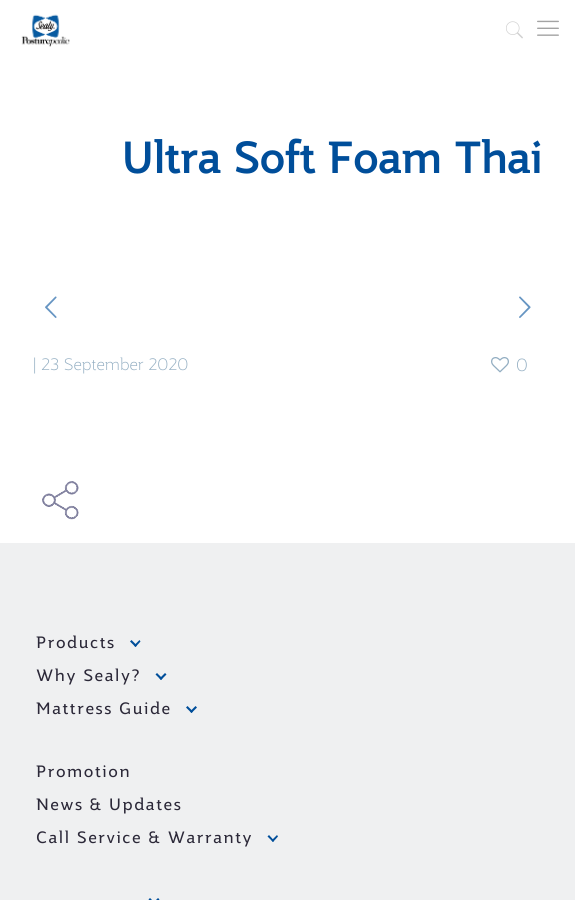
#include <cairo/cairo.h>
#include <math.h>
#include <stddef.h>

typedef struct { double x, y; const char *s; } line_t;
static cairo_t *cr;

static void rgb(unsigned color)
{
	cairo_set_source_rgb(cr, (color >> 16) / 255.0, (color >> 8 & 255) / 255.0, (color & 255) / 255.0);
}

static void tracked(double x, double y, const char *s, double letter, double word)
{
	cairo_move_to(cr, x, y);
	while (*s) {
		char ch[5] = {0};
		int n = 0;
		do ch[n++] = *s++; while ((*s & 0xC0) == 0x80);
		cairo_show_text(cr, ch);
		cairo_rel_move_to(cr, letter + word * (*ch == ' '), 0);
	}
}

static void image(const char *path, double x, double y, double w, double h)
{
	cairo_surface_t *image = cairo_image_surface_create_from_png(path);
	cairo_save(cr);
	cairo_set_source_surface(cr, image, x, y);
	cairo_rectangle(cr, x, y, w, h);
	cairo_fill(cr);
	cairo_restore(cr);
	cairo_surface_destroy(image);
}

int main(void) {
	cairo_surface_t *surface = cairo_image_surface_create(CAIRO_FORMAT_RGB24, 575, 900);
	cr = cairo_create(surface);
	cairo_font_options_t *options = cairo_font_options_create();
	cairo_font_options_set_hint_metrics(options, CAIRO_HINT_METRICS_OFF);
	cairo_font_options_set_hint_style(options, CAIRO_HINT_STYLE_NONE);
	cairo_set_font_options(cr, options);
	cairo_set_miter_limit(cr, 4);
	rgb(0xffffff);
	cairo_paint(cr);
	image("img/1.png", 21, 14, 49, 33);
	image("img/2.png", 537, 20, 22, 16);
	image("img/3.png", 506, 21, 17, 18);
	image("img/4.png", 45, 296, 12, 22);
	image("img/5.png", 519, 296, 12, 22);
	image("img/6.png", 491, 357, 18, 16);
	image("img/7.png", 42, 481, 37, 39);
	rgb(0xeff0f1);
	cairo_rectangle(cr, 0, 543, 575, 357);
	cairo_fill(cr);
	rgb(0x004e9a);
	cairo_new_path(cr);
	cairo_move_to(cr, 140.5, 641.5);
	cairo_line_to(cr, 135.5, 647);
	cairo_line_to(cr, 134, 645.5);
	cairo_line_to(cr, 139.5, 640);
	cairo_close_path(cr);
	cairo_fill(cr);
	cairo_new_path(cr);
	cairo_move_to(cr, 137, 645.5);
	cairo_line_to(cr, 135.5, 647);
	cairo_line_to(cr, 130, 641.5);
	cairo_line_to(cr, 131.5, 640);
	cairo_close_path(cr);
	cairo_fill(cr);
	cairo_new_path(cr);
	cairo_move_to(cr, 166.5, 674.5);
	cairo_line_to(cr, 161, 680);
	cairo_line_to(cr, 159.5, 678.5);
	cairo_line_to(cr, 165, 673);
	cairo_close_path(cr);
	cairo_fill(cr);
	cairo_new_path(cr);
	cairo_move_to(cr, 162.5, 678.5);
	cairo_line_to(cr, 161, 680);
	cairo_line_to(cr, 155.5, 674.5);
	cairo_line_to(cr, 157, 673);
	cairo_close_path(cr);
	cairo_fill(cr);
	cairo_new_path(cr);
	cairo_move_to(cr, 197, 707.5);
	cairo_line_to(cr, 191.5, 713);
	cairo_line_to(cr, 190, 711.5);
	cairo_line_to(cr, 195.5, 706);
	cairo_close_path(cr);
	cairo_fill(cr);
	cairo_new_path(cr);
	cairo_move_to(cr, 193, 711.5);
	cairo_line_to(cr, 191.5, 713);
	cairo_line_to(cr, 186, 707.5);
	cairo_line_to(cr, 187.5, 706);
	cairo_close_path(cr);
	cairo_fill(cr);
	cairo_new_path(cr);
	cairo_move_to(cr, 278, 836.5);
	cairo_line_to(cr, 273, 842);
	cairo_line_to(cr, 271.5, 840.5);
	cairo_line_to(cr, 277, 835);
	cairo_close_path(cr);
	cairo_fill(cr);
	cairo_new_path(cr);
	cairo_move_to(cr, 274, 840.5);
	cairo_line_to(cr, 273, 842);
	cairo_line_to(cr, 267.5, 836.5);
	cairo_line_to(cr, 269, 835);
	cairo_close_path(cr);
	cairo_fill(cr);
	cairo_new_path(cr);
	cairo_move_to(cr, 159.5, 899.5);
	cairo_line_to(cr, 154, 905);
	cairo_line_to(cr, 152.5, 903.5);
	cairo_line_to(cr, 158, 898);
	cairo_close_path(cr);
	cairo_move_to(cr, 155.5, 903.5);
	cairo_line_to(cr, 154, 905);
	cairo_line_to(cr, 148.5, 899.5);
	cairo_line_to(cr, 150, 898);
	cairo_close_path(cr);
	cairo_fill(cr);
	cairo_select_font_face(cr, "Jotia", CAIRO_FONT_SLANT_NORMAL, CAIRO_FONT_WEIGHT_BOLD);
	cairo_set_font_size(cr, 42);
	cairo_move_to(cr, 121, 173);
	cairo_show_text(cr, "Ultra Soft Foam Thai");
	cairo_select_font_face(cr, "Jotia", CAIRO_FONT_SLANT_NORMAL, CAIRO_FONT_WEIGHT_NORMAL);
	cairo_set_font_size(cr, 16);
	rgb(0x93aec2);
	cairo_move_to(cr, 33, 370);
	cairo_show_text(cr, "| 23 September 2020");
	cairo_set_font_size(cr, 17);
	cairo_move_to(cr, 516, 371);
	cairo_show_text(cr, "0");
	cairo_select_font_face(cr, "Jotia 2", CAIRO_FONT_SLANT_NORMAL, CAIRO_FONT_WEIGHT_NORMAL);
	cairo_set_font_size(cr, 16);
	rgb(0x2b2838);
	{
		static const line_t items[] = {
			{36, 648, "Products"},
			{36, 681, "Why Sealy?"},
			{36, 714, "Mattress Guide"},
			{36, 777, "Promotion"},
			{36, 810, "News & Updates"},
			{36, 843, "Call Service & Warranty"},
		};
		for (size_t i = 0; i < sizeof items / sizeof *items; i++) {
			tracked(items[i].x, items[i].y, items[i].s, 1.5, 0);
		}
	}
	cairo_surface_write_to_png(surface, "page.png");
	cairo_font_options_destroy(options);
	cairo_destroy(cr);
	cairo_surface_destroy(surface);
	return 0;
}
